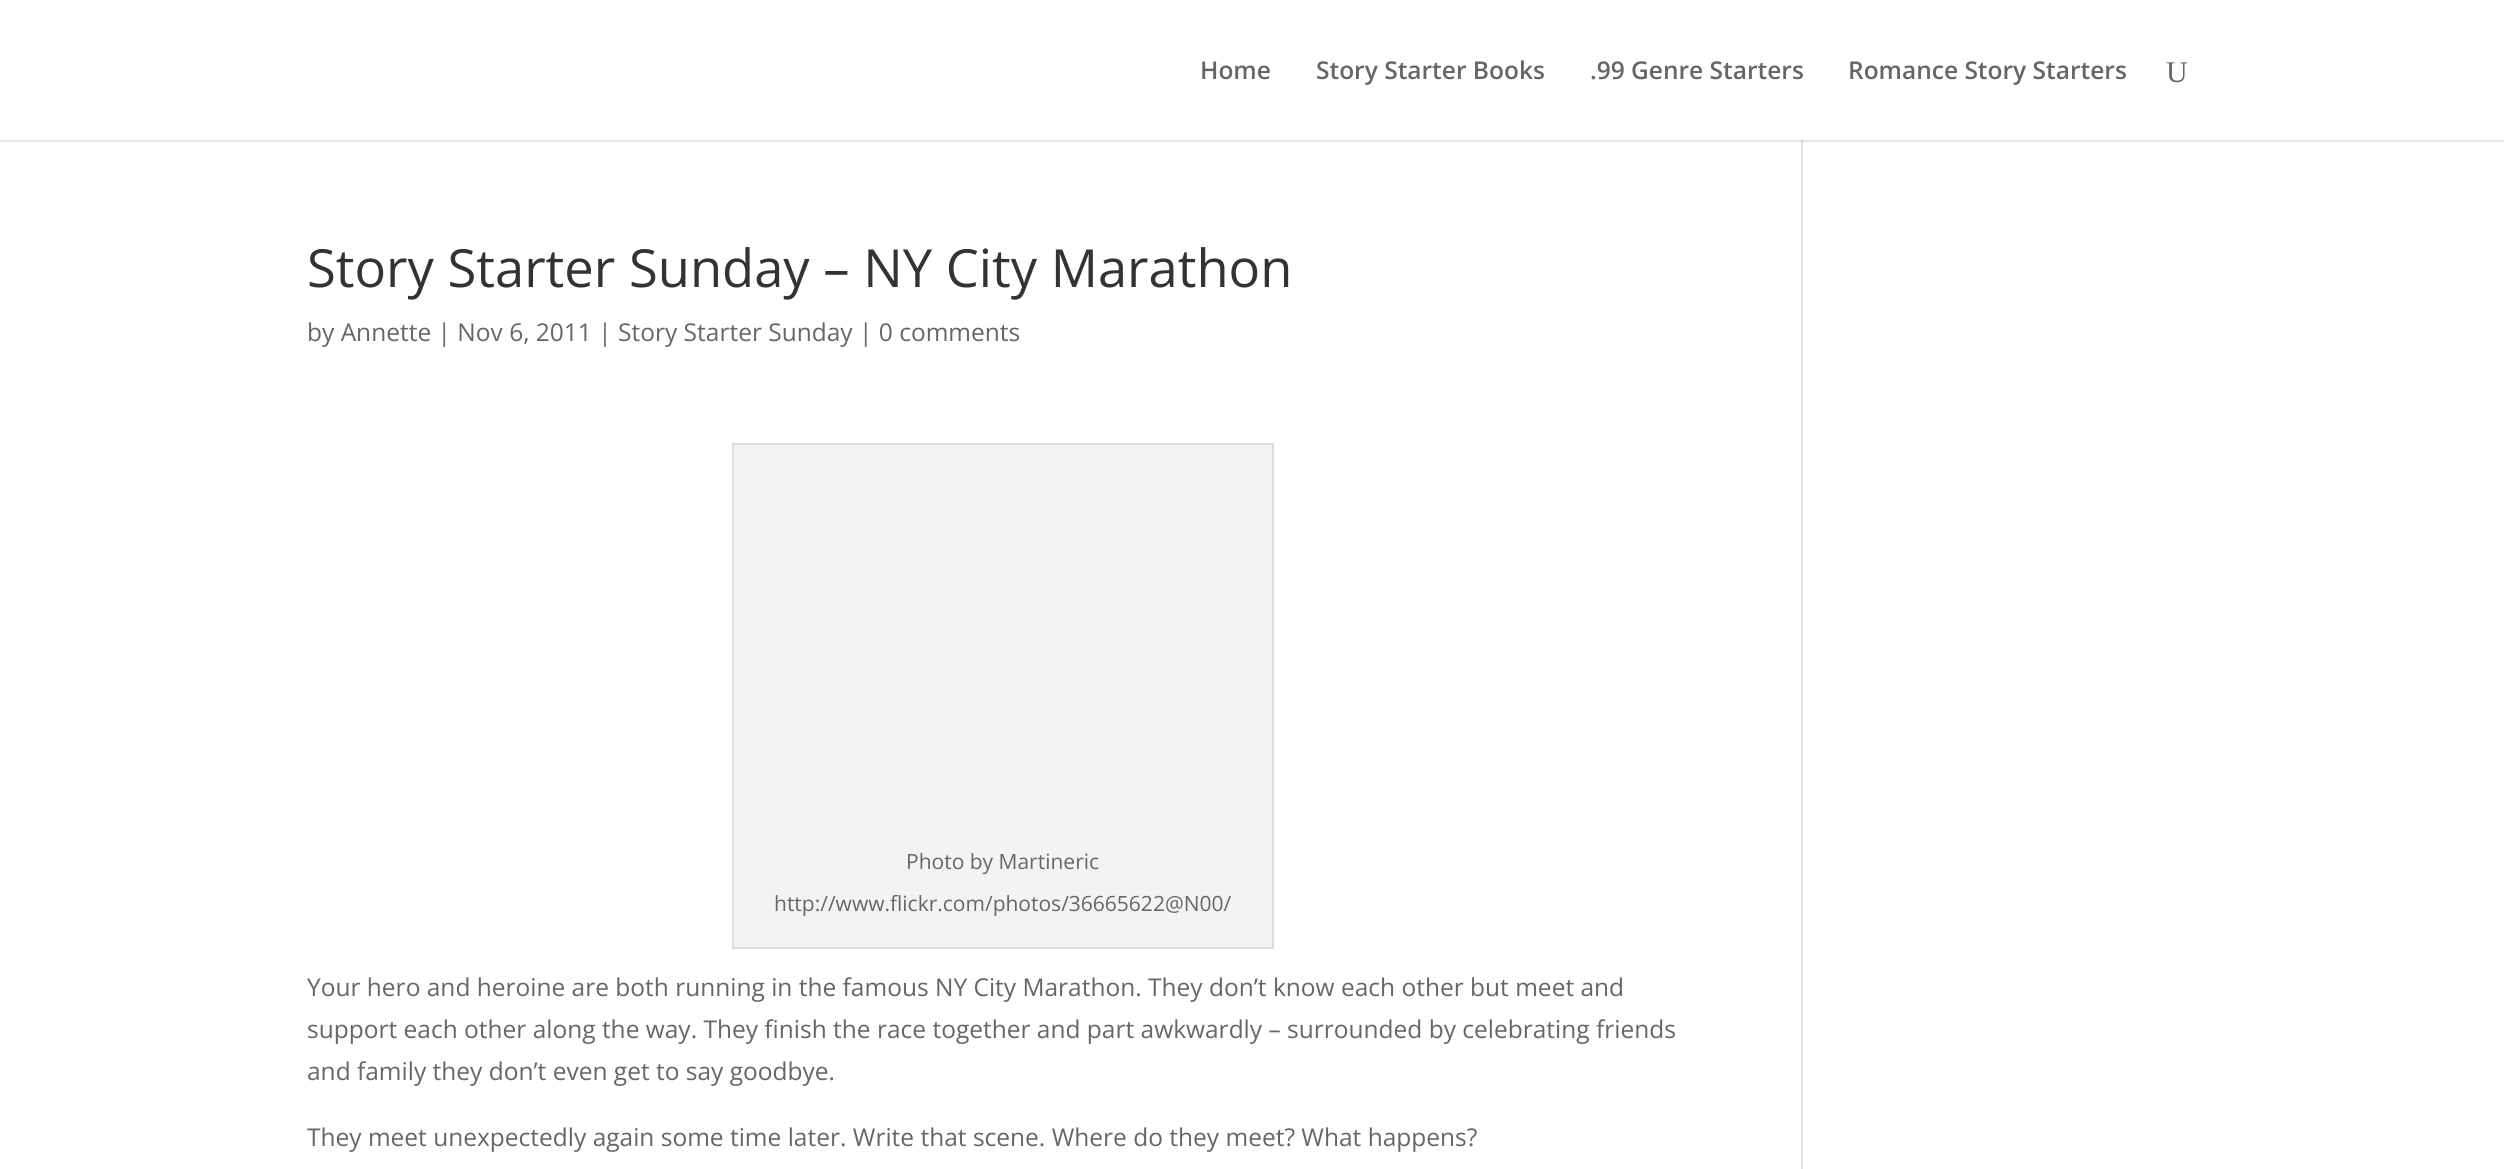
#include <cairo/cairo.h>
#include <math.h>
#include <stddef.h>

typedef struct { double x, y; const char *s; } line_t;
static cairo_t *cr;

static void rgb(unsigned color)
{
	cairo_set_source_rgb(cr, (color >> 16) / 255.0, (color >> 8 & 255) / 255.0, (color & 255) / 255.0);
}

int main(void) {
	cairo_surface_t *surface = cairo_image_surface_create(CAIRO_FORMAT_RGB24, 2504, 1169);
	cr = cairo_create(surface);
	cairo_font_options_t *options = cairo_font_options_create();
	cairo_font_options_set_hint_metrics(options, CAIRO_HINT_METRICS_OFF);
	cairo_font_options_set_hint_style(options, CAIRO_HINT_STYLE_NONE);
	cairo_set_font_options(cr, options);
	cairo_set_miter_limit(cr, 4);
	rgb(0xffffff);
	cairo_paint(cr);
	rgb(0xe6e6e6);
	cairo_rectangle(cr, 0, 140, 2504, 2);
	cairo_fill(cr);
	rgb(0xf3f3f3);
	cairo_rectangle(cr, 733, 444, 540, 504);
	cairo_fill_preserve(cr);
	rgb(0xdddddd);
	cairo_stroke(cr);
	rgb(0xe2e2e2);
	cairo_rectangle(cr, 1801, 140, 2, 1029);
	cairo_fill(cr);
	rgb(0xcbcbcb);
	cairo_rectangle(cr, 1801, 140, 2, 2);
	cairo_fill(cr);
	cairo_select_font_face(cr, "Open Sans SemiBold", CAIRO_FONT_SLANT_NORMAL, CAIRO_FONT_WEIGHT_NORMAL);
	cairo_set_font_size(cr, 24.5);
	rgb(0x666666);
	{
		static const line_t items[] = {
			{1200, 79, "Home"},
			{1316, 79, "Story Starter Books"},
			{1590, 79, ".99 Genre Starters"},
			{1848, 79, "Romance Story Starters"},
		};
		for (size_t i = 0; i < sizeof items / sizeof *items; i++) {
			cairo_move_to(cr, items[i].x, items[i].y);
			cairo_show_text(cr, items[i].s);
		}
	}
	cairo_select_font_face(cr, "Liberation Serif", CAIRO_FONT_SLANT_NORMAL, CAIRO_FONT_WEIGHT_NORMAL);
	cairo_set_font_size(cr, 30);
	cairo_move_to(cr, 2166, 82);
	cairo_show_text(cr, "U");
	cairo_select_font_face(cr, "Open Sans", CAIRO_FONT_SLANT_NORMAL, CAIRO_FONT_WEIGHT_NORMAL);
	cairo_set_font_size(cr, 52.5);
	rgb(0x333333);
	cairo_move_to(cr, 307, 287);
	cairo_show_text(cr, "Story Starter Sunday – NY City Marathon");
	cairo_set_font_size(cr, 24.5);
	rgb(0x666666);
	cairo_move_to(cr, 307, 341);
	cairo_show_text(cr, "by Annette | Nov 6, 2011 | Story Starter Sunday | 0 comments");
	cairo_set_font_size(cr, 21);
	cairo_move_to(cr, 906, 869);
	cairo_show_text(cr, "Photo by Martineric");
	cairo_move_to(cr, 774, 911);
	cairo_show_text(cr, "http://www.flickr.com/photos/36665622@N00/");
	cairo_set_font_size(cr, 24.5);
	{
		static const line_t items[] = {
			{307, 996, "Your hero and heroine are both running in the famous NY City Marathon. They don’t know each other but meet and"},
			{307, 1038, "support each other along the way. They finish the race together and part awkwardly – surrounded by celebrating friends"},
			{307, 1080, "and family they don’t even get to say goodbye."},
			{307, 1146, "They meet unexpectedly again some time later. Write that scene. Where do they meet? What happens?"},
		};
		for (size_t i = 0; i < sizeof items / sizeof *items; i++) {
			cairo_move_to(cr, items[i].x, items[i].y);
			cairo_show_text(cr, items[i].s);
		}
	}
	cairo_surface_write_to_png(surface, "page.png");
	cairo_font_options_destroy(options);
	cairo_destroy(cr);
	cairo_surface_destroy(surface);
	return 0;
}
